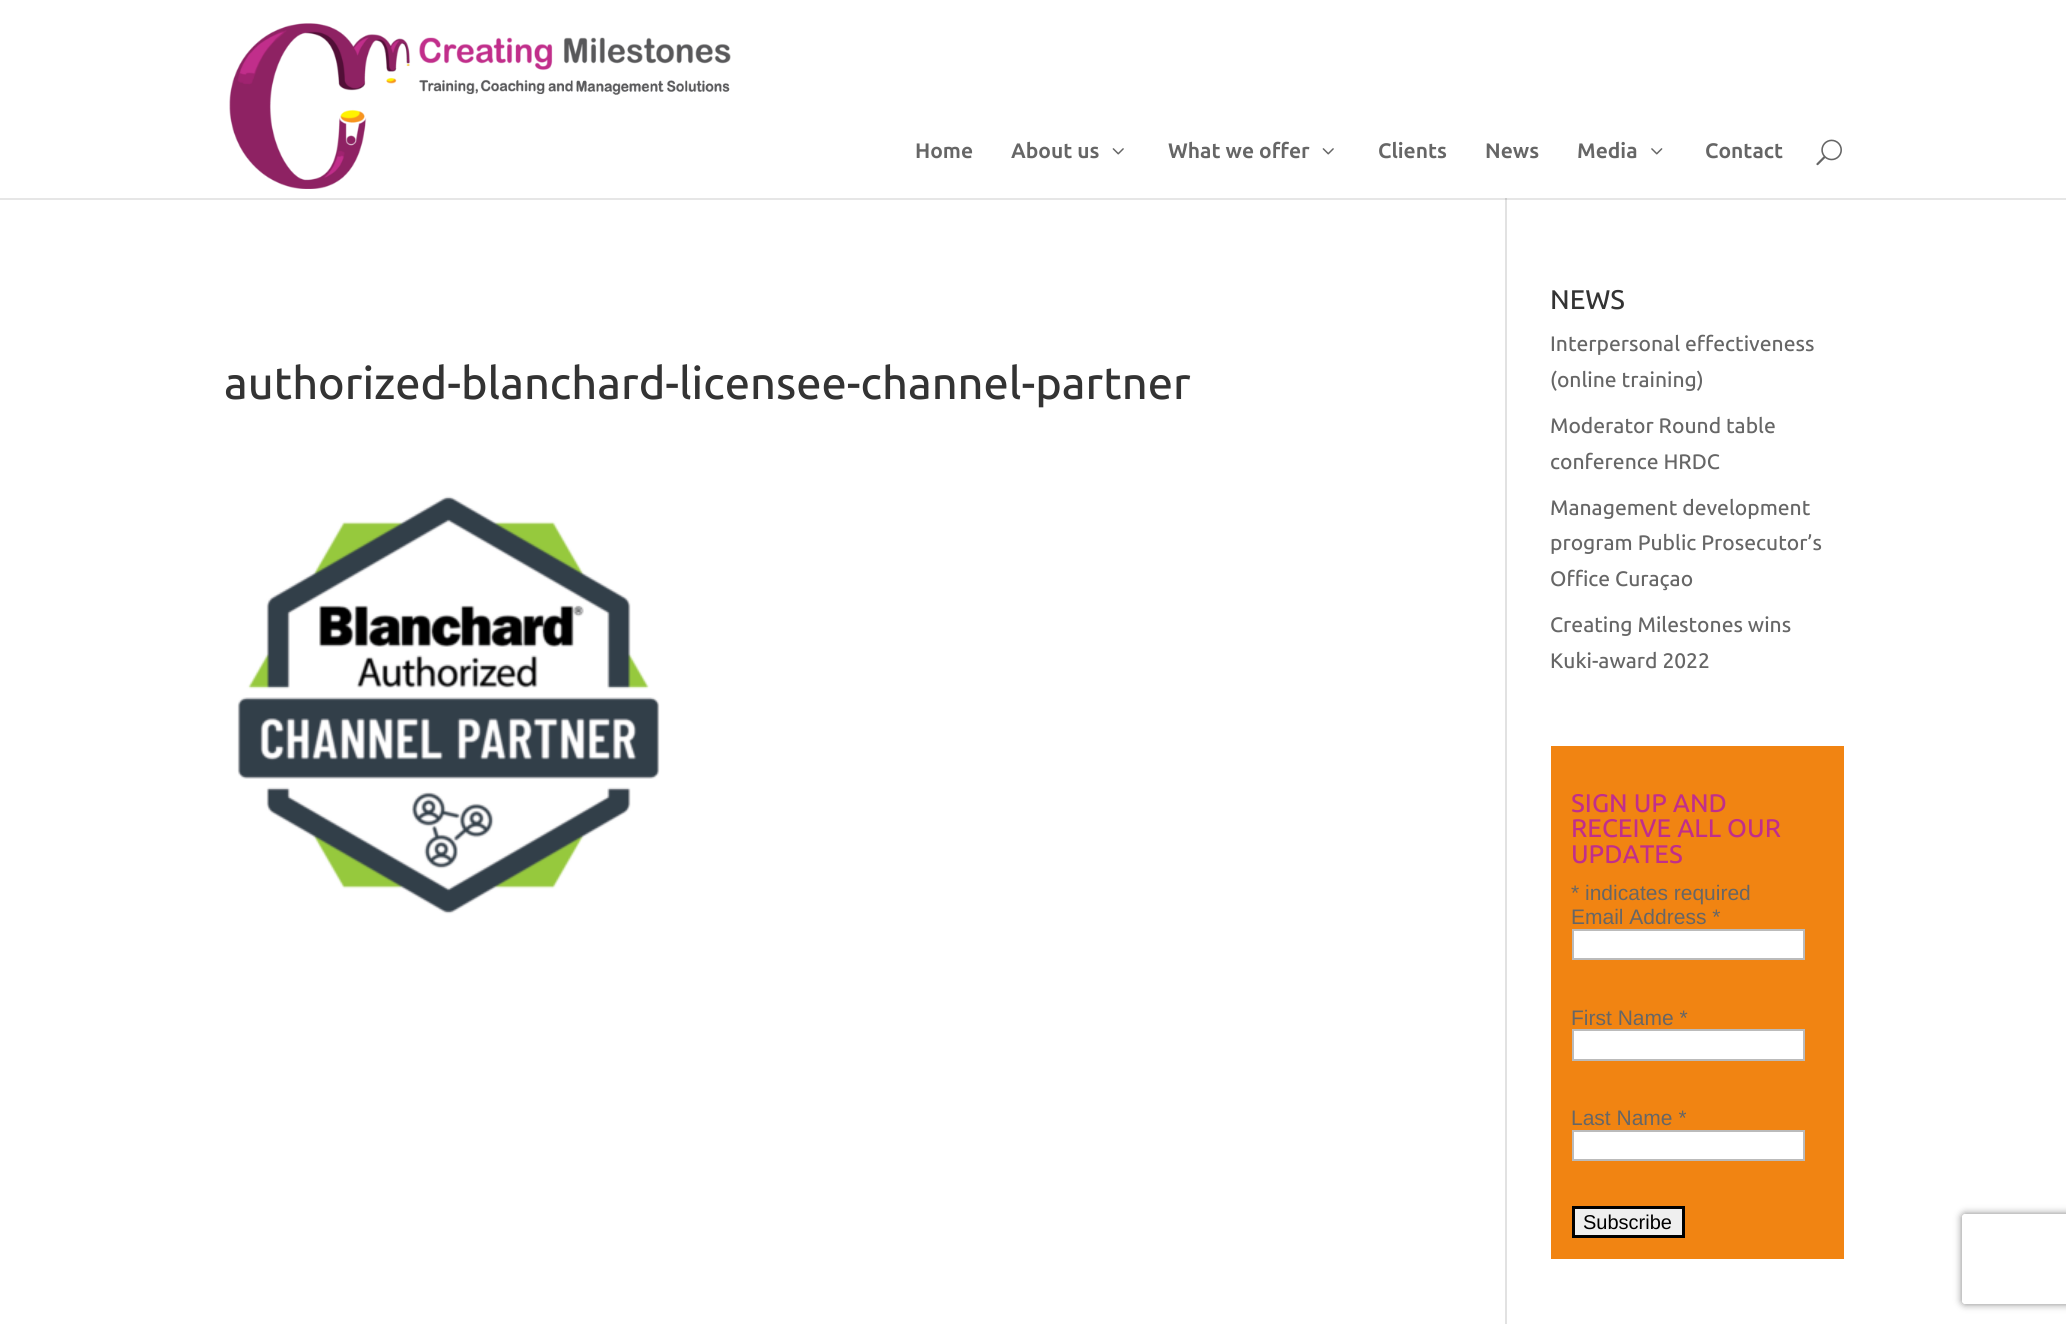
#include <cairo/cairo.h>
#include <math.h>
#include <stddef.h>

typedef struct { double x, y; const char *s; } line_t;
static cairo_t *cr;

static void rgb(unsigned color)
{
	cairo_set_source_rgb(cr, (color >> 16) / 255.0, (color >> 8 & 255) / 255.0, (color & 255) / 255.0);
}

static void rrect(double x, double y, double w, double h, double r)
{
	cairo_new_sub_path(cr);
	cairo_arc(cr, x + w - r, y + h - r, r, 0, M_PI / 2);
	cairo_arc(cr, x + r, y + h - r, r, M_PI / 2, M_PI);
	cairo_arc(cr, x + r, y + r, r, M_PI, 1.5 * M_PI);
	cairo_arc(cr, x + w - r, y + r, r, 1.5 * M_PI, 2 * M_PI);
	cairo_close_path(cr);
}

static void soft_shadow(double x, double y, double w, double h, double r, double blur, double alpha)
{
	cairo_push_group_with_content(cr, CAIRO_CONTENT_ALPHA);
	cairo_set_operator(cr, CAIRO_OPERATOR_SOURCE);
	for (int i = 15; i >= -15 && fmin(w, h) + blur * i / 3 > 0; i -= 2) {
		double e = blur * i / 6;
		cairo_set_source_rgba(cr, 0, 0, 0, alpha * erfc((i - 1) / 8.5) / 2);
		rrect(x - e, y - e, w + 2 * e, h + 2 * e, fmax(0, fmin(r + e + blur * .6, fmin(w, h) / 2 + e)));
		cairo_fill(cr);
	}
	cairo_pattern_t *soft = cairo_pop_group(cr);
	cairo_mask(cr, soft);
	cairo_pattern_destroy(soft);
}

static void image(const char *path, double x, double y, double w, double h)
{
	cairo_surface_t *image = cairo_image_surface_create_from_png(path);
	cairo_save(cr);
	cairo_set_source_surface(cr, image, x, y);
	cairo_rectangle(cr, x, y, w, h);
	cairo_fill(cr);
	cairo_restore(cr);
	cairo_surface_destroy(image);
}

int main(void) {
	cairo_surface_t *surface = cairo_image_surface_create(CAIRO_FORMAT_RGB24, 2066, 1324);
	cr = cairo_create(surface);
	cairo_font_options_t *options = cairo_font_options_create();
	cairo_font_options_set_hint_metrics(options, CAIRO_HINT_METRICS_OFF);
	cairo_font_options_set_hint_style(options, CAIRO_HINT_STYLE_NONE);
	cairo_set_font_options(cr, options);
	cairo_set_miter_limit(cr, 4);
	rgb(0xffffff);
	cairo_paint(cr);
	rgb(0xe6e6e6);
	cairo_rectangle(cr, 0, 198, 2066, 2);
	cairo_fill(cr);
	image("img/1.png", 229, 23, 502, 166);
	image("img/2.png", 1112, 148, 12, 7);
	image("img/2.png", 1322, 148, 12, 7);
	image("img/3.png", 1651, 148, 12, 7);
	image("img/4.png", 1816, 139, 26, 27);
	rgb(0xe2e2e2);
	cairo_rectangle(cr, 1505, 198, 2, 1126);
	cairo_fill(cr);
	rgb(0xcbcbcb);
	cairo_rectangle(cr, 1505, 198, 2, 2);
	cairo_fill(cr);
	image("img/5.png", 237, 496, 423, 418);
	rgb(0xf18412);
	cairo_rectangle(cr, 1551, 746, 293, 513);
	cairo_fill(cr);
	rgb(0xffffff);
	cairo_rectangle(cr, 1573, 930, 231, 29);
	cairo_fill_preserve(cr);
	rgb(0xbbbbbb);
	cairo_stroke(cr);
	rgb(0xffffff);
	cairo_rectangle(cr, 1573, 1030, 231, 30);
	cairo_fill_preserve(cr);
	rgb(0xbbbbbb);
	cairo_stroke(cr);
	rgb(0xffffff);
	cairo_rectangle(cr, 1573, 1131, 231, 29);
	cairo_fill_preserve(cr);
	rgb(0xbbbbbb);
	cairo_stroke(cr);
	rgb(0xefefef);
	cairo_rectangle(cr, 1573.5, 1207.5, 110, 29);
	cairo_fill_preserve(cr);
	rgb(0x000000);
	cairo_set_line_width(cr, 3);
	cairo_stroke(cr);
	cairo_save(cr);
	cairo_set_fill_rule(cr, CAIRO_FILL_RULE_EVEN_ODD);
	cairo_new_path(cr);
	cairo_move_to(cr, 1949, 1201);
	cairo_line_to(cr, 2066, 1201);
	cairo_line_to(cr, 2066, 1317);
	cairo_line_to(cr, 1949, 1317);
	cairo_close_path(cr);
	cairo_move_to(cr, 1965, 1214);
	cairo_line_to(cr, 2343, 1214);
	cairo_curve_to(cr, 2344.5, 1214, 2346, 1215.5, 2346, 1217);
	cairo_line_to(cr, 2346, 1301);
	cairo_curve_to(cr, 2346, 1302.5, 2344.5, 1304, 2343, 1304);
	cairo_line_to(cr, 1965, 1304);
	cairo_curve_to(cr, 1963.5, 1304, 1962, 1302.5, 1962, 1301);
	cairo_line_to(cr, 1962, 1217);
	cairo_curve_to(cr, 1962, 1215.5, 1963.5, 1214, 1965, 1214);
	cairo_close_path(cr);
	cairo_clip(cr);
	rgb(0x808080);
	soft_shadow(1962, 1214, 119, 90, 3, 4, 1);
	cairo_restore(cr);
	cairo_select_font_face(cr, "Ubuntu", CAIRO_FONT_SLANT_NORMAL, CAIRO_FONT_WEIGHT_BOLD);
	cairo_set_font_size(cr, 21);
	rgb(0x666666);
	{
		static const line_t items[] = {
			{915, 158, "Home"},
			{1011, 158, "About us"},
			{1168, 158, "What we offer"},
			{1378, 158, "Clients"},
			{1485, 158, "News"},
			{1577, 158, "Media"},
			{1705, 158, "Contact"},
		};
		for (size_t i = 0; i < sizeof items / sizeof *items; i++) {
			cairo_move_to(cr, items[i].x, items[i].y);
			cairo_show_text(cr, items[i].s);
		}
	}
	cairo_select_font_face(cr, "Ubuntu Medium", CAIRO_FONT_SLANT_NORMAL, CAIRO_FONT_WEIGHT_NORMAL);
	cairo_set_font_size(cr, 45);
	rgb(0x333333);
	cairo_move_to(cr, 224, 399);
	cairo_show_text(cr, "authorized-blanchard-licensee-channel-partner");
	cairo_set_font_size(cr, 27);
	cairo_move_to(cr, 1550, 309);
	cairo_show_text(cr, "NEWS");
	cairo_set_font_size(cr, 21);
	rgb(0x666666);
	{
		static const line_t items[] = {
			{1550, 351, "Interpersonal effectiveness"},
			{1550, 387, "(online training)"},
			{1550, 433, "Moderator Round table"},
			{1550, 469, "conference HRDC"},
			{1550, 515, "Management development"},
			{1550, 550, "program Public Prosecutor’s"},
			{1550, 586, "Office Curaçao"},
			{1550, 632, "Creating Milestones wins"},
			{1550, 668, "Kuki-award 2022"},
		};
		for (size_t i = 0; i < sizeof items / sizeof *items; i++) {
			cairo_move_to(cr, items[i].x, items[i].y);
			cairo_show_text(cr, items[i].s);
		}
	}
	cairo_set_font_size(cr, 25.5);
	rgb(0xc12e8b);
	{
		static const line_t items[] = {
			{1571, 812, "SIGN UP AND"},
			{1571, 837, "RECEIVE ALL OUR"},
			{1571, 863, "UPDATES"},
		};
		for (size_t i = 0; i < sizeof items / sizeof *items; i++) {
			cairo_move_to(cr, items[i].x, items[i].y);
			cairo_show_text(cr, items[i].s);
		}
	}
	cairo_select_font_face(cr, "Liberation Sans", CAIRO_FONT_SLANT_NORMAL, CAIRO_FONT_WEIGHT_NORMAL);
	cairo_set_font_size(cr, 21);
	rgb(0x666666);
	{
		static const line_t items[] = {
			{1571, 900, "* indicates required"},
			{1571, 924, "Email Address *"},
			{1571, 1025, "First Name *"},
			{1571, 1125, "Last Name *"},
		};
		for (size_t i = 0; i < sizeof items / sizeof *items; i++) {
			cairo_move_to(cr, items[i].x, items[i].y);
			cairo_show_text(cr, items[i].s);
		}
	}
	cairo_set_font_size(cr, 20);
	rgb(0x000000);
	cairo_move_to(cr, 1583, 1229);
	cairo_show_text(cr, "Subscribe");
	cairo_surface_write_to_png(surface, "page.png");
	cairo_font_options_destroy(options);
	cairo_destroy(cr);
	cairo_surface_destroy(surface);
	return 0;
}
